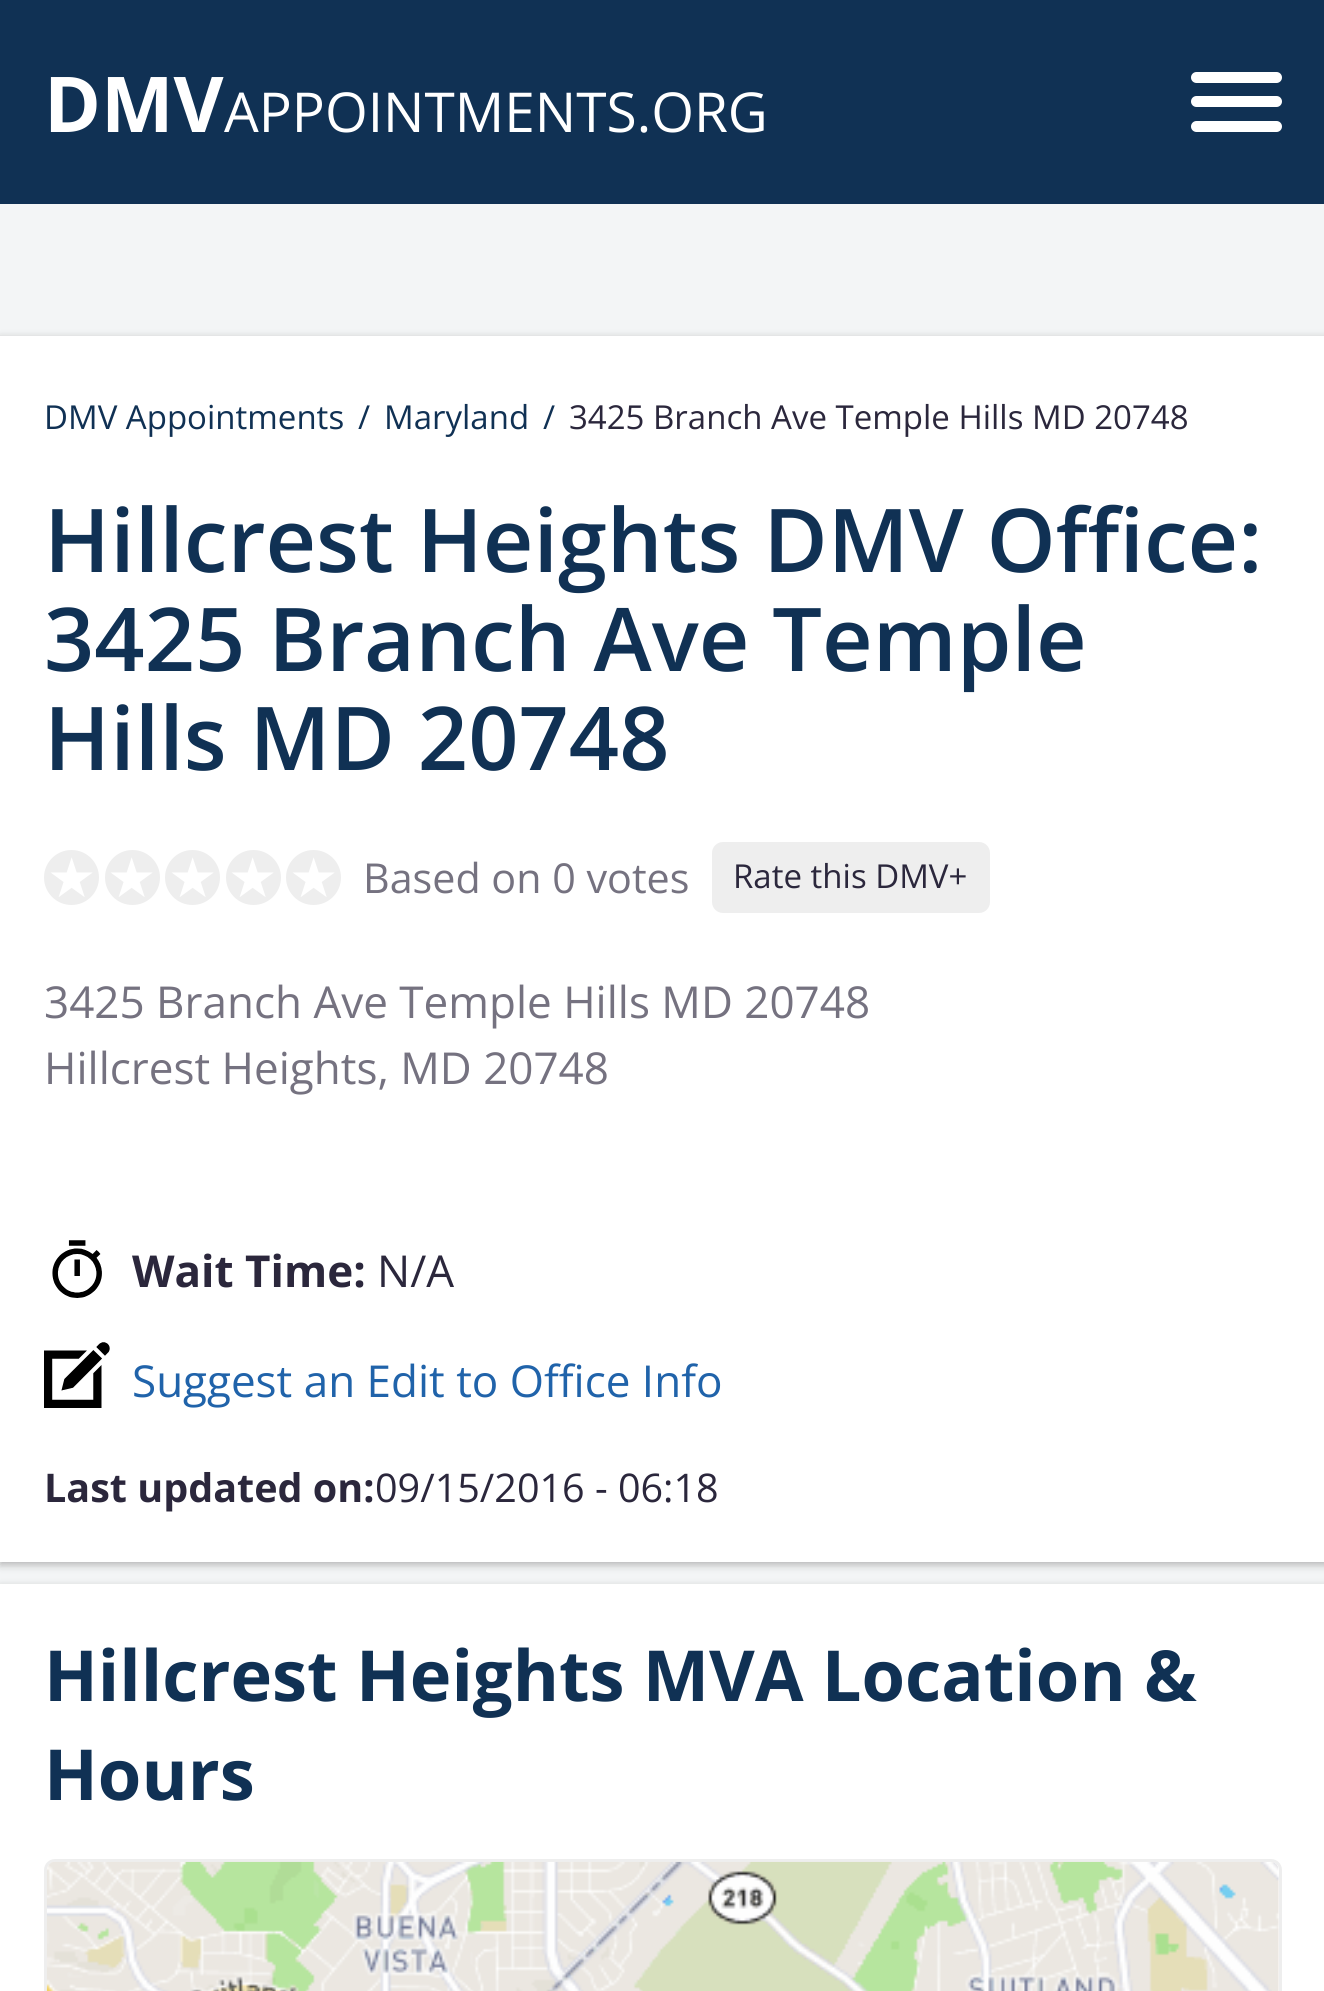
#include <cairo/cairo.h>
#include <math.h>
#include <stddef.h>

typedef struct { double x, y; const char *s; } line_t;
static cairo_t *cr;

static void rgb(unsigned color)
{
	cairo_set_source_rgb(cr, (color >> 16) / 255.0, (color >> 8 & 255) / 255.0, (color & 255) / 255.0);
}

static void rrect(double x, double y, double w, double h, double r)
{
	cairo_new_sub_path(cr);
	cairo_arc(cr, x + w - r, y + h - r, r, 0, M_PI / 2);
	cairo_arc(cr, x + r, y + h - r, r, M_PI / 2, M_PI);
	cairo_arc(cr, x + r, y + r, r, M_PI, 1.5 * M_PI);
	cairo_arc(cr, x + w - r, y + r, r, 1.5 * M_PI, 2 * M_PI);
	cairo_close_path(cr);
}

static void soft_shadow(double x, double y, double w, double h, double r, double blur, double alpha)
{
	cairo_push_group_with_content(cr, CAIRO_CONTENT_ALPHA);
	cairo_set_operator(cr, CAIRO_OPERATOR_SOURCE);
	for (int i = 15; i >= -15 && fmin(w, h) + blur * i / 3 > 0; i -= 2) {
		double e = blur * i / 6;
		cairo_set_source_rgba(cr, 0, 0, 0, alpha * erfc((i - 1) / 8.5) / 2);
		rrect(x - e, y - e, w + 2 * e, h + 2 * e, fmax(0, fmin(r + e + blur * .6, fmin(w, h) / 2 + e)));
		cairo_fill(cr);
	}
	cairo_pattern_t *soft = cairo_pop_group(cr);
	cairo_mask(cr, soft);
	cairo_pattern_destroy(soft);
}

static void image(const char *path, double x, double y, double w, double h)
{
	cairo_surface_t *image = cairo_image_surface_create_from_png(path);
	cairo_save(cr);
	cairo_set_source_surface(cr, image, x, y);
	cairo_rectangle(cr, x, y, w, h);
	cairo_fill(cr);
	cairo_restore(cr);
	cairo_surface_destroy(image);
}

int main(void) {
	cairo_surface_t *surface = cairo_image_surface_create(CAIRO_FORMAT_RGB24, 1324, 1991);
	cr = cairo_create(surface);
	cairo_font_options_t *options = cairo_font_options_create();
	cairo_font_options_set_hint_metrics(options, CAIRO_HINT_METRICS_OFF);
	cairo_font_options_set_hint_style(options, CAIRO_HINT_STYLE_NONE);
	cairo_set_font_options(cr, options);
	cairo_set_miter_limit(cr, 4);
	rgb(0xf3f5f6);
	cairo_paint(cr);
	rgb(0x103154);
	cairo_rectangle(cr, 0, 0, 1324, 204);
	cairo_fill(cr);
	rgb(0xffffff);
	rrect(1191, 72, 91, 11, 5.5);
	cairo_fill(cr);
	rrect(1191, 96, 91, 11, 5.5);
	cairo_fill(cr);
	rrect(1191, 121, 91, 11, 5.5);
	cairo_fill(cr);
	rgb(0x25201f);
	soft_shadow(0, 338, 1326, 1227, 0, 4, 0.3);
	rgb(0xffffff);
	cairo_rectangle(cr, 0, 336, 1324, 1226);
	cairo_fill(cr);
	rgb(0xeeeeee);
	cairo_arc(cr, 71.5, 877.5, 27.5, 0, 2 * M_PI);
	cairo_fill(cr);
	cairo_arc(cr, 132.5, 877.5, 27.5, 0, 2 * M_PI);
	cairo_fill(cr);
	cairo_arc(cr, 192.5, 877.5, 27.5, 0, 2 * M_PI);
	cairo_fill(cr);
	cairo_arc(cr, 253.5, 877.5, 27.5, 0, 2 * M_PI);
	cairo_fill(cr);
	cairo_arc(cr, 313.5, 877.5, 27.5, 0, 2 * M_PI);
	cairo_fill(cr);
	rrect(712, 842, 278, 71, 11);
	cairo_fill(cr);
	image("img/1.png", 52, 1240, 50, 58);
	image("img/2.png", 44, 1342, 66, 66);
	rgb(0x25201f);
	soft_shadow(0, 1587, 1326, 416, 0, 4, 0.3);
	rgb(0xffffff);
	cairo_rectangle(cr, 0, 1584, 1324, 407);
	cairo_fill(cr);
	rrect(45.5, 1860.5, 1235, 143, 9.5);
	rgb(0xeeeeee);
	cairo_set_line_width(cr, 3);
	cairo_stroke(cr);
	image("img/3.png", 46, 1861, 1233, 130);
	cairo_select_font_face(cr, "Open Sans", CAIRO_FONT_SLANT_NORMAL, CAIRO_FONT_WEIGHT_BOLD);
	cairo_set_font_size(cr, 77);
	rgb(0xffffff);
	cairo_move_to(cr, 44, 132);
	cairo_show_text(cr, "DMV");
	cairo_select_font_face(cr, "Open Sans", CAIRO_FONT_SLANT_NORMAL, CAIRO_FONT_WEIGHT_NORMAL);
	cairo_set_font_size(cr, 55);
	cairo_move_to(cr, 224, 132);
	cairo_show_text(cr, "APPOINTMENTS.ORG");
	cairo_set_font_size(cr, 33);
	rgb(0x103154);
	{
		static const line_t items[] = {
			{44, 429, "DMV Appointments"},
			{358, 429, "/"},
			{384, 429, "Maryland"},
			{543, 429, "/"},
		};
		for (size_t i = 0; i < sizeof items / sizeof *items; i++) {
			cairo_move_to(cr, items[i].x, items[i].y);
			cairo_show_text(cr, items[i].s);
		}
	}
	rgb(0x2b273c);
	cairo_move_to(cr, 569, 429);
	cairo_show_text(cr, "3425 Branch Ave Temple Hills MD 20748");
	cairo_select_font_face(cr, "Open Sans SemiBold", CAIRO_FONT_SLANT_NORMAL, CAIRO_FONT_WEIGHT_NORMAL);
	cairo_set_font_size(cr, 88);
	rgb(0x103154);
	{
		static const line_t items[] = {
			{44, 572, "Hillcrest Heights DMV Office:"},
			{44, 671, "3425 Branch Ave Temple"},
			{44, 770, "Hills MD 20748"},
		};
		for (size_t i = 0; i < sizeof items / sizeof *items; i++) {
			cairo_move_to(cr, items[i].x, items[i].y);
			cairo_show_text(cr, items[i].s);
		}
	}
	cairo_select_font_face(cr, "DejaVu Sans", CAIRO_FONT_SLANT_NORMAL, CAIRO_FONT_WEIGHT_NORMAL);
	cairo_set_font_size(cr, 55);
	rgb(0xffffff);
	{
		static const line_t items[] = {
			{47, 897, "★"},
			{107, 897, "★"},
			{168, 897, "★"},
			{228, 897, "★"},
			{289, 897, "★"},
		};
		for (size_t i = 0; i < sizeof items / sizeof *items; i++) {
			cairo_move_to(cr, items[i].x, items[i].y);
			cairo_show_text(cr, items[i].s);
		}
	}
	cairo_select_font_face(cr, "Open Sans", CAIRO_FONT_SLANT_NORMAL, CAIRO_FONT_WEIGHT_NORMAL);
	cairo_set_font_size(cr, 41.25);
	rgb(0x757280);
	cairo_move_to(cr, 363, 893);
	cairo_show_text(cr, "Based on 0 votes");
	cairo_set_font_size(cr, 33);
	rgb(0x2b273c);
	cairo_move_to(cr, 733, 888);
	cairo_show_text(cr, "Rate this DMV+");
	cairo_set_font_size(cr, 44);
	rgb(0x757280);
	cairo_move_to(cr, 44, 1018);
	cairo_show_text(cr, "3425 Branch Ave Temple Hills MD 20748");
	cairo_move_to(cr, 44, 1084);
	cairo_show_text(cr, "Hillcrest Heights, MD 20748");
	cairo_select_font_face(cr, "Open Sans", CAIRO_FONT_SLANT_NORMAL, CAIRO_FONT_WEIGHT_BOLD);
	rgb(0x2b273c);
	cairo_move_to(cr, 132, 1287);
	cairo_show_text(cr, "Wait Time:");
	cairo_select_font_face(cr, "Open Sans", CAIRO_FONT_SLANT_NORMAL, CAIRO_FONT_WEIGHT_NORMAL);
	cairo_move_to(cr, 377, 1287);
	cairo_show_text(cr, "N/A");
	rgb(0x2063aa);
	cairo_move_to(cr, 132, 1397);
	cairo_show_text(cr, "Suggest an Edit to Office Info");
	cairo_select_font_face(cr, "Open Sans", CAIRO_FONT_SLANT_NORMAL, CAIRO_FONT_WEIGHT_BOLD);
	cairo_set_font_size(cr, 39.5);
	rgb(0x2b273c);
	cairo_move_to(cr, 44, 1502);
	cairo_show_text(cr, "Last updated on:");
	cairo_select_font_face(cr, "Open Sans", CAIRO_FONT_SLANT_NORMAL, CAIRO_FONT_WEIGHT_NORMAL);
	cairo_move_to(cr, 375, 1502);
	cairo_show_text(cr, "09/15/2016 - 06:18");
	cairo_select_font_face(cr, "Open Sans", CAIRO_FONT_SLANT_NORMAL, CAIRO_FONT_WEIGHT_BOLD);
	cairo_set_font_size(cr, 70.4);
	rgb(0x103154);
	cairo_move_to(cr, 44, 1701);
	cairo_show_text(cr, "Hillcrest Heights MVA Location &");
	cairo_move_to(cr, 44, 1800);
	cairo_show_text(cr, "Hours");
	cairo_surface_write_to_png(surface, "page.png");
	cairo_font_options_destroy(options);
	cairo_destroy(cr);
	cairo_surface_destroy(surface);
	return 0;
}
